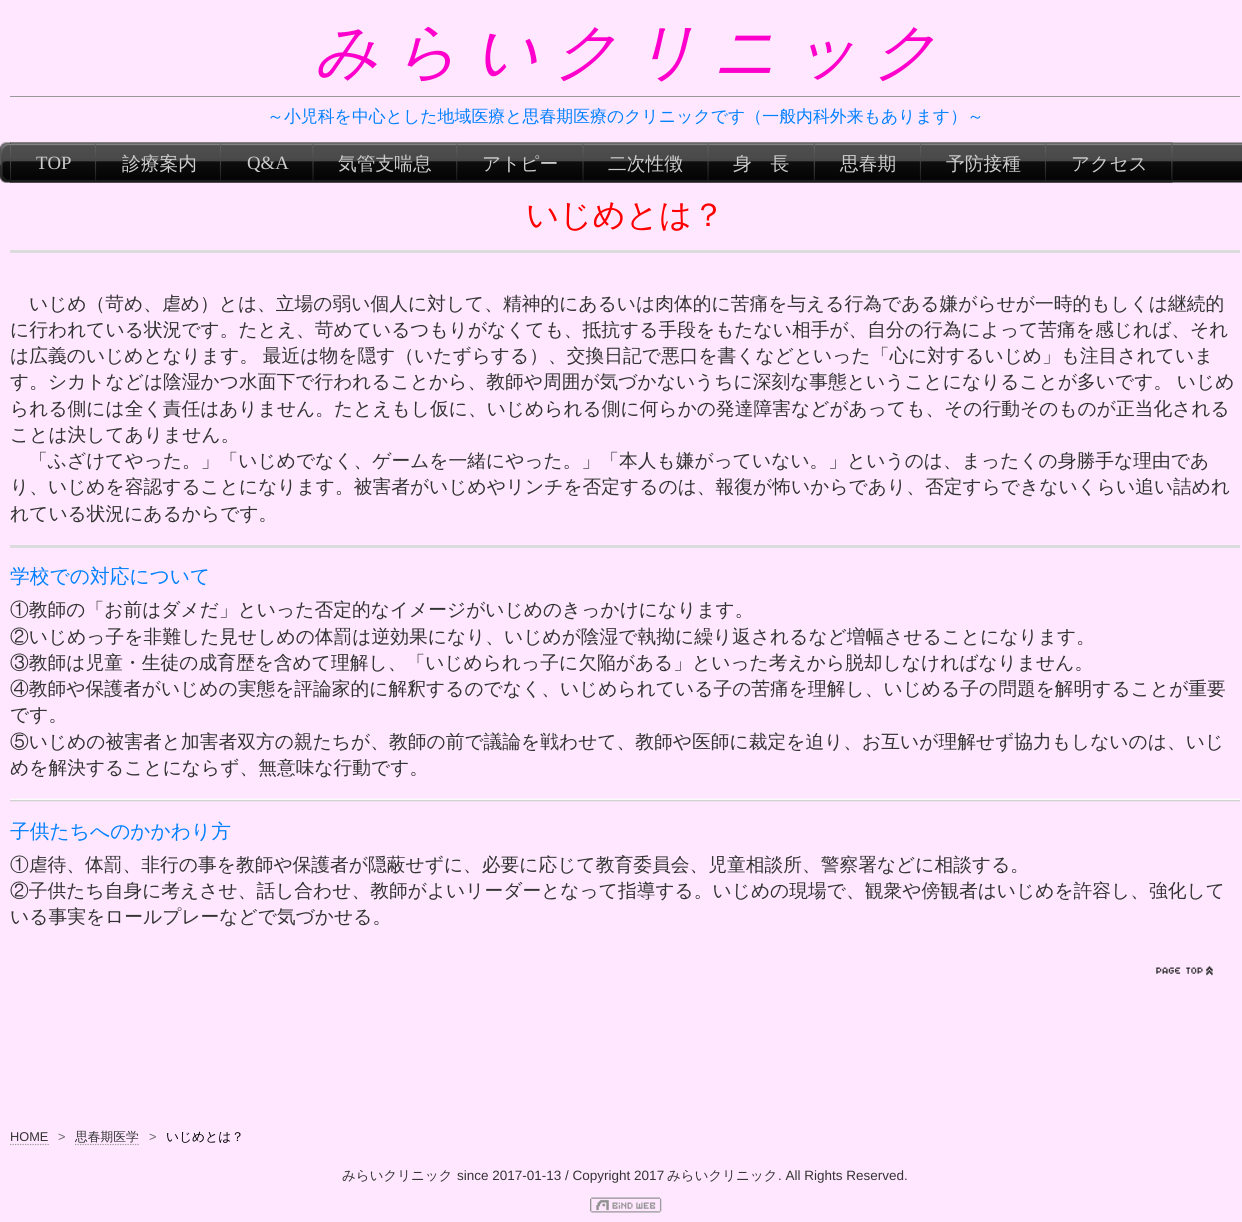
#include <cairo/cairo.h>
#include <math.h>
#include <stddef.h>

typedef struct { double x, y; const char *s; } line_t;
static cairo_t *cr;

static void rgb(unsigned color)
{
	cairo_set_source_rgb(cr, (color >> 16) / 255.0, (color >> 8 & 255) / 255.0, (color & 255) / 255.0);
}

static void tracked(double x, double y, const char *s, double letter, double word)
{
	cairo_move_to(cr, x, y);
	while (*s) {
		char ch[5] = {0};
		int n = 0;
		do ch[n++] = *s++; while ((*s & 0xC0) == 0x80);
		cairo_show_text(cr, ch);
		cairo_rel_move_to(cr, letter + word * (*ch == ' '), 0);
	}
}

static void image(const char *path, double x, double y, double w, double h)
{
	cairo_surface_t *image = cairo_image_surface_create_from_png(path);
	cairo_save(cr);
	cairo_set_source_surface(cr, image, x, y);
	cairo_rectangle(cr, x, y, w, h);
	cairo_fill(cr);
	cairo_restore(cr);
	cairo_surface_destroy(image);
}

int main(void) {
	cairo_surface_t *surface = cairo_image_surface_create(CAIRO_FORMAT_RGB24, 1242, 1222);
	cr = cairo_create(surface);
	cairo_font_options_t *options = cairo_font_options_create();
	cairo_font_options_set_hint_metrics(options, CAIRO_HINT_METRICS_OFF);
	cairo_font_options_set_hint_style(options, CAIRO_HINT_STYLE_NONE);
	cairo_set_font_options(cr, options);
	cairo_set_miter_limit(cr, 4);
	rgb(0xffe8ff);
	cairo_paint(cr);
	rgb(0x999999);
	cairo_rectangle(cr, 10, 96, 1230, 1);
	cairo_fill(cr);
	image("img/1.png", 0, 142, 10, 41);
	image("img/2.png", 10, 142, 1232, 41);
	image("img/3.png", 10, 142, 2, 41);
	image("img/4.png", 11, 142, 86, 41);
	image("img/5.png", 96, 142, 126, 41);
	image("img/6.png", 221, 142, 93, 41);
	image("img/7.png", 313, 142, 145, 41);
	image("img/8.png", 457, 142, 127, 41);
	image("img/9.png", 583, 142, 126, 41);
	image("img/10.png", 708, 142, 107, 41);
	image("img/11.png", 815, 142, 107, 41);
	image("img/5.png", 921, 142, 126, 41);
	image("img/12.png", 1046, 142, 127, 41);
	rgb(0xdbdbdb);
	cairo_rectangle(cr, 10, 250, 1230, 3);
	cairo_fill(cr);
	cairo_rectangle(cr, 10, 545, 1230, 3);
	cairo_fill(cr);
	image("img/13.png", 10, 798, 1230, 4);
	image("img/14.png", 1156, 966, 57, 10);
	cairo_new_path(cr);
	cairo_move_to(cr, 10, 1144.5);
	cairo_line_to(cr, 49, 1144.5);
	rgb(0x999999);
	cairo_set_line_width(cr, 1.2);
	cairo_set_dash(cr, (double[]){1.25, 1.25}, 2, 0);
	cairo_stroke(cr);
	cairo_new_path(cr);
	cairo_move_to(cr, 75, 1144.5);
	cairo_line_to(cr, 139, 1144.5);
	cairo_stroke(cr);
	image("img/15.png", 590, 1197, 72, 16);
	cairo_select_font_face(cr, "WenQuanYi Zen Hei Medium", CAIRO_FONT_SLANT_ITALIC, CAIRO_FONT_WEIGHT_NORMAL);
	cairo_set_font_size(cr, 62.5);
	rgb(0xff00cc);
	tracked(315, 73, "み ら い ク リ ニ ッ ク", 0, -3);
	cairo_select_font_face(cr, "WenQuanYi Zen Hei Medium", CAIRO_FONT_SLANT_NORMAL, CAIRO_FONT_WEIGHT_NORMAL);
	cairo_set_font_size(cr, 16.9);
	rgb(0x0080ff);
	cairo_move_to(cr, 267, 122);
	cairo_show_text(cr, "～小児科を中心とした地域医療と思春期医療のクリニックです（一般内科外来もあります）～");
	cairo_select_font_face(cr, "Liberation Serif", CAIRO_FONT_SLANT_NORMAL, CAIRO_FONT_WEIGHT_NORMAL);
	cairo_set_font_size(cr, 18.75);
	rgb(0xcccccc);
	cairo_move_to(cr, 36, 169);
	cairo_show_text(cr, "TOP");
	cairo_select_font_face(cr, "WenQuanYi Zen Hei Medium", CAIRO_FONT_SLANT_NORMAL, CAIRO_FONT_WEIGHT_NORMAL);
	cairo_move_to(cr, 122, 170);
	cairo_show_text(cr, "診療案内");
	cairo_select_font_face(cr, "Liberation Serif", CAIRO_FONT_SLANT_NORMAL, CAIRO_FONT_WEIGHT_NORMAL);
	cairo_move_to(cr, 247, 169);
	cairo_show_text(cr, "Q&A");
	cairo_select_font_face(cr, "WenQuanYi Zen Hei Medium", CAIRO_FONT_SLANT_NORMAL, CAIRO_FONT_WEIGHT_NORMAL);
	{
		static const line_t items[] = {
			{338, 170, "気管支喘息"},
			{482, 170, "アトピー"},
			{608, 170, "二次性徴"},
			{733, 170, "身　長"},
			{840, 170, "思春期"},
			{946, 170, "予防接種"},
			{1071, 170, "アクセス"},
		};
		for (size_t i = 0; i < sizeof items / sizeof *items; i++) {
			cairo_move_to(cr, items[i].x, items[i].y);
			cairo_show_text(cr, items[i].s);
		}
	}
	cairo_set_font_size(cr, 32.5);
	rgb(0xff0000);
	cairo_move_to(cr, 526, 226);
	cairo_show_text(cr, "いじめとは？");
	cairo_set_font_size(cr, 18.75);
	rgb(0x333333);
	cairo_move_to(cr, 29, 310);
	cairo_show_text(cr, "いじめ（苛め、虐め）とは、立場の弱い個人に対して、精神的にあるいは肉体的に苦痛を与える行為である嫌がらせが一時的もしくは継続的");
	cairo_move_to(cr, 10, 336);
	cairo_show_text(cr, "に行われている状況です。たとえ、苛めているつもりがなくても、抵抗する手段をもたない相手が、自分の行為によって苦痛を感じれば、それ");
	tracked(10, 362, "は広義のいじめとなります。 最近は物を隠す（いたずらする）、交換日記で悪口を書くなどといった「心に対するいじめ」も注目されていま", 0, -1);
	tracked(10, 388, "す。シカトなどは陰湿かつ水面下で行われることから、教師や周囲が気づかないうちに深刻な事態ということになりることが多いです。 いじめ", 0, -1);
	{
		static const line_t items[] = {
			{10, 415, "られる側には全く責任はありません。たとえもし仮に、いじめられる側に何らかの発達障害などがあっても、その行動そのものが正当化される"},
			{10, 441, "ことは決してありません。"},
			{29, 467, "「ふざけてやった。」「いじめでなく、ゲームを一緒にやった。」「本人も嫌がっていない。」というのは、まったくの身勝手な理由であ"},
			{10, 493, "り、いじめを容認することになります。被害者がいじめやリンチを否定するのは、報復が怖いからであり、否定すらできないくらい追い詰めれ"},
			{10, 520, "れている状況にあるからです。"},
		};
		for (size_t i = 0; i < sizeof items / sizeof *items; i++) {
			cairo_move_to(cr, items[i].x, items[i].y);
			cairo_show_text(cr, items[i].s);
		}
	}
	cairo_set_font_size(cr, 19.75);
	rgb(0x0080ff);
	cairo_move_to(cr, 10, 583);
	cairo_show_text(cr, "学校での対応について");
	cairo_set_font_size(cr, 18.75);
	rgb(0x333333);
	{
		static const line_t items[] = {
			{10, 616, "①教師の「お前はダメだ」といった否定的なイメージがいじめのきっかけになります。"},
			{10, 643, "②いじめっ子を非難した見せしめの体罰は逆効果になり、いじめが陰湿で執拗に繰り返されるなど増幅させることになります。"},
			{10, 669, "③教師は児童・生徒の成育歴を含めて理解し、「いじめられっ子に欠陥がある」といった考えから脱却しなければなりません。"},
			{10, 695, "④教師や保護者がいじめの実態を評論家的に解釈するのでなく、いじめられている子の苦痛を理解し、いじめる子の問題を解明することが重要"},
			{10, 721, "です。"},
			{10, 748, "⑤いじめの被害者と加害者双方の親たちが、教師の前で議論を戦わせて、教師や医師に裁定を迫り、お互いが理解せず協力もしないのは、いじ"},
			{10, 774, "めを解決することにならず、無意味な行動です。"},
		};
		for (size_t i = 0; i < sizeof items / sizeof *items; i++) {
			cairo_move_to(cr, items[i].x, items[i].y);
			cairo_show_text(cr, items[i].s);
		}
	}
	cairo_set_font_size(cr, 19.75);
	rgb(0x0080ff);
	cairo_move_to(cr, 10, 838);
	cairo_show_text(cr, "子供たちへのかかわり方");
	cairo_set_font_size(cr, 18.75);
	rgb(0x333333);
	{
		static const line_t items[] = {
			{10, 871, "①虐待、体罰、非行の事を教師や保護者が隠蔽せずに、必要に応じて教育委員会、児童相談所、警察署などに相談する。"},
			{10, 897, "②子供たち自身に考えさせ、話し合わせ、教師がよいリーダーとなって指導する。いじめの現場で、観衆や傍観者はいじめを許容し、強化して"},
			{10, 923, "いる事実をロールプレーなどで気づかせる。"},
		};
		for (size_t i = 0; i < sizeof items / sizeof *items; i++) {
			cairo_move_to(cr, items[i].x, items[i].y);
			cairo_show_text(cr, items[i].s);
		}
	}
	cairo_select_font_face(cr, "Liberation Sans", CAIRO_FONT_SLANT_NORMAL, CAIRO_FONT_WEIGHT_NORMAL);
	cairo_set_font_size(cr, 12.75);
	cairo_move_to(cr, 10, 1141);
	cairo_show_text(cr, "HOME");
	rgb(0x666666);
	cairo_move_to(cr, 58, 1141);
	cairo_show_text(cr, ">");
	cairo_select_font_face(cr, "WenQuanYi Zen Hei Medium", CAIRO_FONT_SLANT_NORMAL, CAIRO_FONT_WEIGHT_NORMAL);
	rgb(0x333333);
	cairo_move_to(cr, 75, 1141);
	cairo_show_text(cr, "思春期医学");
	cairo_select_font_face(cr, "Liberation Sans", CAIRO_FONT_SLANT_NORMAL, CAIRO_FONT_WEIGHT_NORMAL);
	rgb(0x666666);
	cairo_move_to(cr, 149, 1141);
	cairo_show_text(cr, ">");
	cairo_select_font_face(cr, "WenQuanYi Zen Hei Medium", CAIRO_FONT_SLANT_NORMAL, CAIRO_FONT_WEIGHT_NORMAL);
	rgb(0x000000);
	cairo_move_to(cr, 166, 1141);
	cairo_show_text(cr, "いじめとは？");
	cairo_set_font_size(cr, 13.5);
	rgb(0x333333);
	cairo_move_to(cr, 342, 1180);
	cairo_show_text(cr, "みらいクリニック");
	cairo_select_font_face(cr, "Liberation Sans", CAIRO_FONT_SLANT_NORMAL, CAIRO_FONT_WEIGHT_NORMAL);
	cairo_move_to(cr, 457, 1180);
	cairo_show_text(cr, "since 2017-01-13 / Copyright 2017");
	cairo_select_font_face(cr, "WenQuanYi Zen Hei Medium", CAIRO_FONT_SLANT_NORMAL, CAIRO_FONT_WEIGHT_NORMAL);
	cairo_move_to(cr, 667, 1180);
	cairo_show_text(cr, "みらいクリニック");
	cairo_select_font_face(cr, "Liberation Sans", CAIRO_FONT_SLANT_NORMAL, CAIRO_FONT_WEIGHT_NORMAL);
	cairo_move_to(cr, 778, 1180);
	cairo_show_text(cr, ". All Rights Reserved.");
	cairo_surface_write_to_png(surface, "page.png");
	cairo_font_options_destroy(options);
	cairo_destroy(cr);
	cairo_surface_destroy(surface);
	return 0;
}
